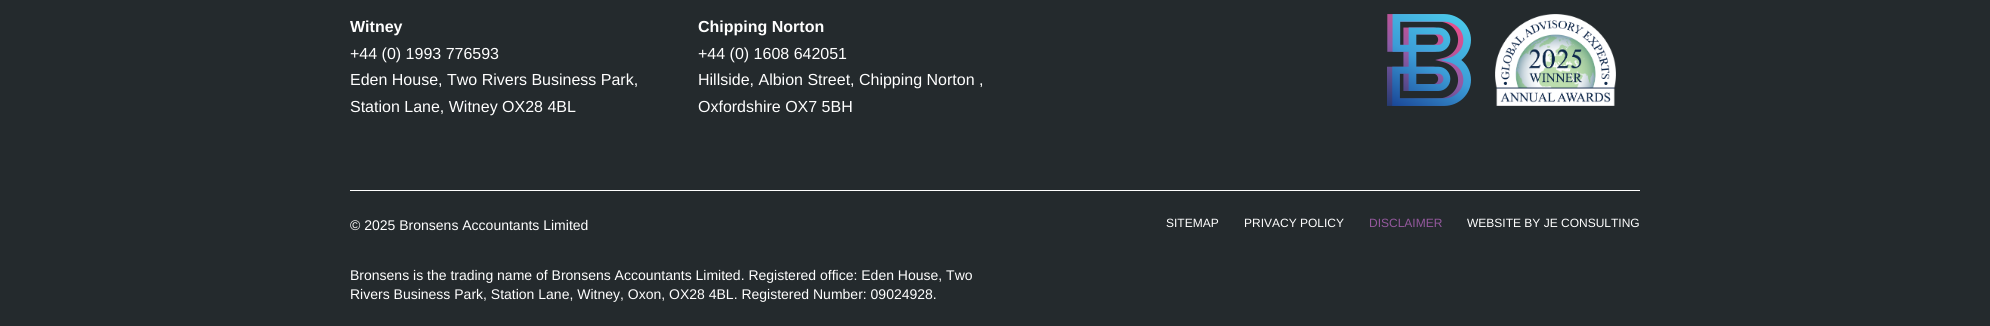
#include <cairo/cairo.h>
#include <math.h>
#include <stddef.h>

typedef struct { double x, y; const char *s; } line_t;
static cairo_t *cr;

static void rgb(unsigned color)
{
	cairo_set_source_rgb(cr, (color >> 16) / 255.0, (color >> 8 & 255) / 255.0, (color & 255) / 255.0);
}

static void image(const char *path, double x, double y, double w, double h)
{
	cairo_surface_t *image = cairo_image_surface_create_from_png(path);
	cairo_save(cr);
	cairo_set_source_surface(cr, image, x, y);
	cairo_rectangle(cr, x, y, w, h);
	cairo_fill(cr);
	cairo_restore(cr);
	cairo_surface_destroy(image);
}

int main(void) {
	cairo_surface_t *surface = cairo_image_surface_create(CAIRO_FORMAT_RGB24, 1990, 326);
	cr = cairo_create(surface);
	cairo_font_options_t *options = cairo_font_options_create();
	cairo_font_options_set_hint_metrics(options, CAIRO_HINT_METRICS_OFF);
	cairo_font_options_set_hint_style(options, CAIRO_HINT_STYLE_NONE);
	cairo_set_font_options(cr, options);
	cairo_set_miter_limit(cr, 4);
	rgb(0x242a2d);
	cairo_paint(cr);
	rgb(0xffffff);
	cairo_rectangle(cr, 350, 190, 1290, 1);
	cairo_fill(cr);
	image("img/1.png", 1387, 14, 84, 92);
	image("img/2.png", 1495, 14, 121, 92);
	cairo_select_font_face(cr, "Liberation Sans", CAIRO_FONT_SLANT_NORMAL, CAIRO_FONT_WEIGHT_BOLD);
	cairo_set_font_size(cr, 16);
	cairo_move_to(cr, 350, 32);
	cairo_show_text(cr, "Witney");
	cairo_select_font_face(cr, "Liberation Sans", CAIRO_FONT_SLANT_NORMAL, CAIRO_FONT_WEIGHT_NORMAL);
	{
		static const line_t items[] = {
			{350, 59, "+44 (0) 1993 776593"},
			{350, 85, "Eden House, Two Rivers Business Park,"},
			{350, 112, "Station Lane, Witney OX28 4BL"},
		};
		for (size_t i = 0; i < sizeof items / sizeof *items; i++) {
			cairo_move_to(cr, items[i].x, items[i].y);
			cairo_show_text(cr, items[i].s);
		}
	}
	cairo_select_font_face(cr, "Liberation Sans", CAIRO_FONT_SLANT_NORMAL, CAIRO_FONT_WEIGHT_BOLD);
	cairo_move_to(cr, 698, 32);
	cairo_show_text(cr, "Chipping Norton");
	cairo_select_font_face(cr, "Liberation Sans", CAIRO_FONT_SLANT_NORMAL, CAIRO_FONT_WEIGHT_NORMAL);
	{
		static const line_t items[] = {
			{698, 59, "+44 (0) 1608 642051"},
			{698, 85, "Hillside, Albion Street, Chipping Norton ,"},
			{698, 112, "Oxfordshire OX7 5BH"},
		};
		for (size_t i = 0; i < sizeof items / sizeof *items; i++) {
			cairo_move_to(cr, items[i].x, items[i].y);
			cairo_show_text(cr, items[i].s);
		}
	}
	cairo_set_font_size(cr, 14);
	{
		static const line_t items[] = {
			{350, 230, "© 2025 Bronsens Accountants Limited"},
			{350, 280, "Bronsens is the trading name of Bronsens Accountants Limited. Registered office: Eden House, Two"},
			{350, 299, "Rivers Business Park, Station Lane, Witney, Oxon, OX28 4BL. Registered Number: 09024928."},
		};
		for (size_t i = 0; i < sizeof items / sizeof *items; i++) {
			cairo_move_to(cr, items[i].x, items[i].y);
			cairo_show_text(cr, items[i].s);
		}
	}
	cairo_set_font_size(cr, 12);
	cairo_move_to(cr, 1166, 227);
	cairo_show_text(cr, "SITEMAP");
	cairo_move_to(cr, 1244, 227);
	cairo_show_text(cr, "PRIVACY POLICY");
	rgb(0x94589d);
	cairo_move_to(cr, 1369, 227);
	cairo_show_text(cr, "DISCLAIMER");
	rgb(0xffffff);
	cairo_move_to(cr, 1467, 227);
	cairo_show_text(cr, "WEBSITE BY JE CONSULTING");
	cairo_surface_write_to_png(surface, "page.png");
	cairo_font_options_destroy(options);
	cairo_destroy(cr);
	cairo_surface_destroy(surface);
	return 0;
}
